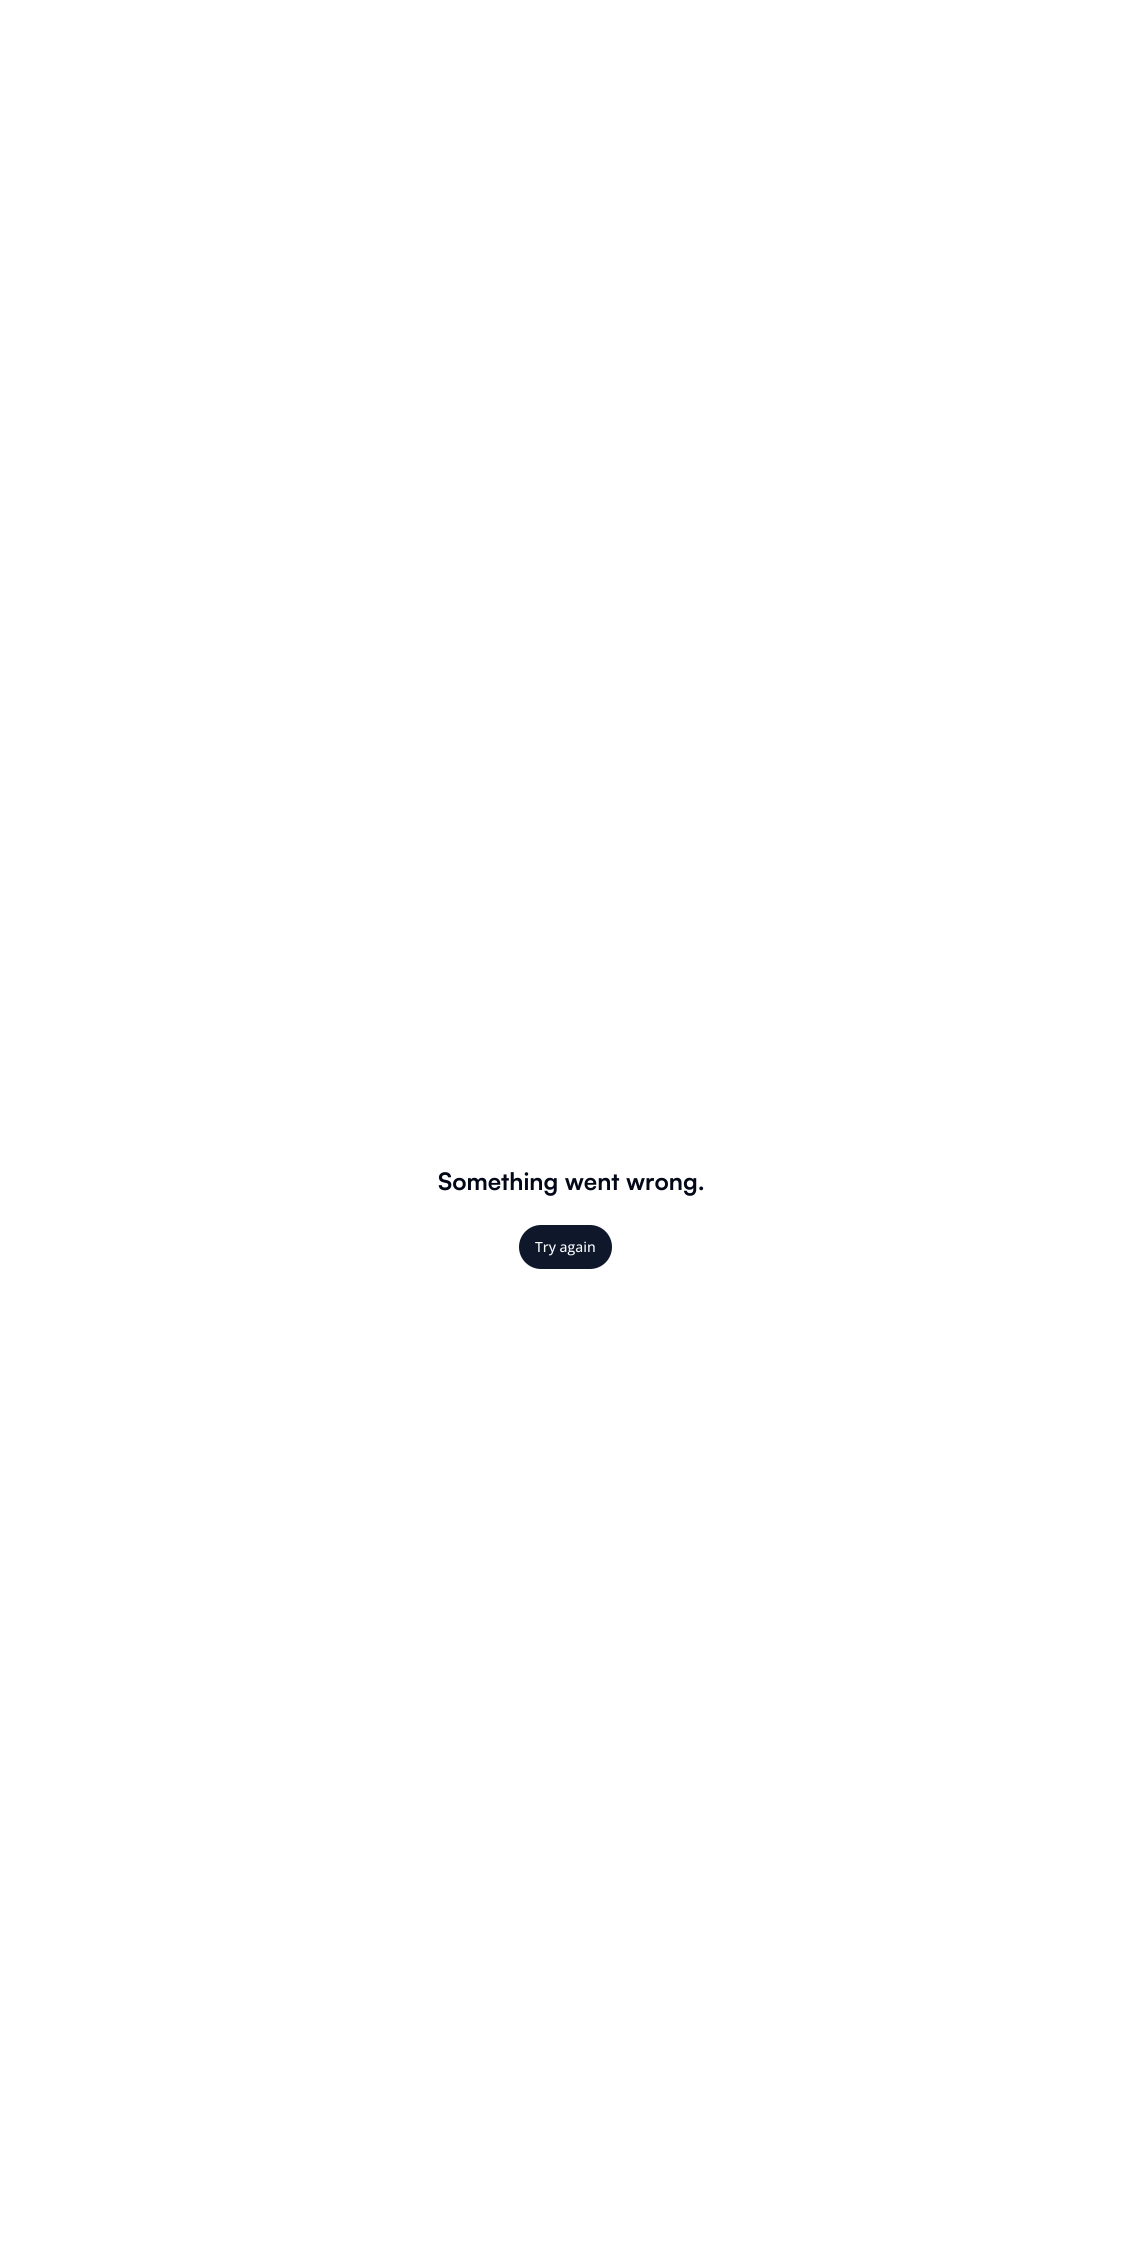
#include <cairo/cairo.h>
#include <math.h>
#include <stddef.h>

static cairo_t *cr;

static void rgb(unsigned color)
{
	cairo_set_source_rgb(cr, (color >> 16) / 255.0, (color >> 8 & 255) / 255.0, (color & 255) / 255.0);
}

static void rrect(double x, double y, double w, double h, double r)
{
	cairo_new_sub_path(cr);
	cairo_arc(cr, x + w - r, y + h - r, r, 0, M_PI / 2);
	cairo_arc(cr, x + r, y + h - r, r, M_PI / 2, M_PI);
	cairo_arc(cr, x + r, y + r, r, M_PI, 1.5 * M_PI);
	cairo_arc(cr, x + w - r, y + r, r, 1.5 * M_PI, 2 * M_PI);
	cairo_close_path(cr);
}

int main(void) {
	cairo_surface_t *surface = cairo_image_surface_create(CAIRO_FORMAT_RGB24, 1143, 2246);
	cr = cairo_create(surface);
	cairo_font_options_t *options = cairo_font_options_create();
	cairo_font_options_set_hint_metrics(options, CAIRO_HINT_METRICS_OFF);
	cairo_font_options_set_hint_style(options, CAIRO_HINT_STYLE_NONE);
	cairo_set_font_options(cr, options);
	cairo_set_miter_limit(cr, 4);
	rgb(0xffffff);
	cairo_paint(cr);
	rgb(0x0f172a);
	rrect(519, 1225, 93, 44, 22);
	cairo_fill(cr);
	cairo_select_font_face(cr, "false", CAIRO_FONT_SLANT_NORMAL, CAIRO_FONT_WEIGHT_BOLD);
	cairo_set_font_size(cr, 24);
	rgb(0x020817);
	cairo_move_to(cr, 438, 1190);
	cairo_show_text(cr, "Something went wrong.");
	cairo_select_font_face(cr, "Open Sans Medium", CAIRO_FONT_SLANT_NORMAL, CAIRO_FONT_WEIGHT_NORMAL);
	cairo_set_font_size(cr, 14);
	rgb(0xf8fafc);
	cairo_move_to(cr, 535, 1252);
	cairo_show_text(cr, "Try again");
	cairo_surface_write_to_png(surface, "page.png");
	cairo_font_options_destroy(options);
	cairo_destroy(cr);
	cairo_surface_destroy(surface);
	return 0;
}
